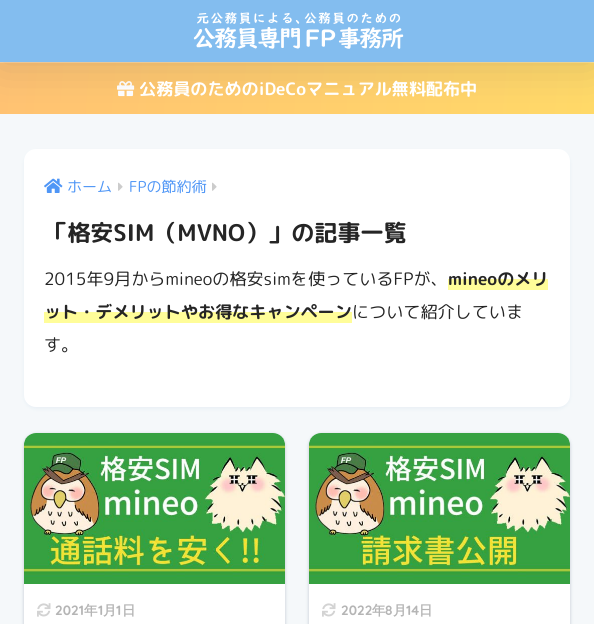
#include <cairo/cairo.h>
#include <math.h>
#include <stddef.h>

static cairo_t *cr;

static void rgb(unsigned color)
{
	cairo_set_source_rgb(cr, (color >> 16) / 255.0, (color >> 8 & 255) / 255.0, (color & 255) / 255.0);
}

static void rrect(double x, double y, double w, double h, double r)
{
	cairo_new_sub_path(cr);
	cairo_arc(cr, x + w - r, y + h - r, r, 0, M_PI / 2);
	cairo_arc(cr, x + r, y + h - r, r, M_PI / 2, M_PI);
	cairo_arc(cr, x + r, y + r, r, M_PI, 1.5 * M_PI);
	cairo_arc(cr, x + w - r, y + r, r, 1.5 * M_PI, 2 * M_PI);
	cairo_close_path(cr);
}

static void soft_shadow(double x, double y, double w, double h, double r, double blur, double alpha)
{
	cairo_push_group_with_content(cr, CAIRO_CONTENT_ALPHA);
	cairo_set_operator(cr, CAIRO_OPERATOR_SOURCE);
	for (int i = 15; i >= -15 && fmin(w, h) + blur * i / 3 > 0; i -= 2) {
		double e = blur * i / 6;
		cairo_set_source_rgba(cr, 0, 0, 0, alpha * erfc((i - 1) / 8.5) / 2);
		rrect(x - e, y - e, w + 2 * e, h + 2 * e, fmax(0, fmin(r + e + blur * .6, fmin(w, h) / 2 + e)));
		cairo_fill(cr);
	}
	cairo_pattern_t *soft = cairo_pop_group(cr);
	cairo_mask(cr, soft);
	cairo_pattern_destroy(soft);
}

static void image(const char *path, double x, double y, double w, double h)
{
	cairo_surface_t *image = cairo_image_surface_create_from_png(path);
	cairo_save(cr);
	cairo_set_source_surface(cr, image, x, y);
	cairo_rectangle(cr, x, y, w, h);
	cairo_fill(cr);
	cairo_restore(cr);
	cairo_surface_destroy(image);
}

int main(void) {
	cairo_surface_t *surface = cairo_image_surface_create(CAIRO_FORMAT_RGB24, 594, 624);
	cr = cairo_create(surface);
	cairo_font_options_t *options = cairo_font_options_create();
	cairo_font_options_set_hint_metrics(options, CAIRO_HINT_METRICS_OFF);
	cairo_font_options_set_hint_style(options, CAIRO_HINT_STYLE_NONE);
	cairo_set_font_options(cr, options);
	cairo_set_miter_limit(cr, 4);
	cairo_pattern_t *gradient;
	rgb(0xf5f8fa);
	cairo_paint(cr);
	gradient = cairo_pattern_create_linear(0, 12, 594, 63);
	cairo_pattern_add_color_stop_rgba(gradient, 0, 1, 0.831, 0.612, 1);
	cairo_pattern_add_color_stop_rgba(gradient, 1, 1, 0.894, 0.584, 1);
	cairo_set_source(cr, gradient);
	cairo_pattern_destroy(gradient);
	cairo_rectangle(cr, 0, 62, 594, 1);
	cairo_fill(cr);
	gradient = cairo_pattern_create_linear(0, 63, 594, 114);
	cairo_pattern_add_color_stop_rgba(gradient, 0, 1, 0.761, 0.447, 1);
	cairo_pattern_add_color_stop_rgba(gradient, 1, 1, 0.851, 0.408, 1);
	cairo_set_source(cr, gradient);
	cairo_pattern_destroy(gradient);
	cairo_rectangle(cr, 0, 63, 594, 51);
	cairo_fill(cr);
	image("img/2.png", 117, 81, 18, 16);
	rgb(0x000c42);
	soft_shadow(0, 0, 594, 62, 0, 22.5, 0.15);
	rgb(0x83bdef);
	cairo_rectangle(cr, 0, 0, 594, 62);
	cairo_fill(cr);
	image("img/1.png", 193, 12, 211, 37);
	rgb(0x4385bb);
	soft_shadow(24, 151, 546, 258, 12, 2, 0.07);
	rgb(0xffffff);
	rrect(24, 149, 546, 258, 12);
	cairo_fill(cr);
	image("img/3.png", 44, 178, 19, 15);
	image("img/4.png", 118, 182, 5, 9);
	image("img/4.png", 212, 182, 5, 9);
	rgb(0xfffd99);
	cairo_rectangle(cr, 448, 279, 100, 11);
	cairo_fill(cr);
	cairo_rectangle(cr, 44, 312, 308, 11);
	cairo_fill(cr);
	rgb(0x182c54);
	soft_shadow(23, 433, 263, 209, 13, 1.5, 0.1);
	soft_shadow(24, 434, 261, 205, 12, 1, 0.1);
	rgb(0xffffff);
	rrect(24, 433, 261, 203, 12);
	cairo_fill(cr);
	image("img/5.png", 24, 433, 261, 151);
	image("img/6.png", 37, 603, 14, 14);
	rgb(0x182c54);
	soft_shadow(308, 433, 263, 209, 13, 1.5, 0.1);
	soft_shadow(309, 434, 261, 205, 12, 1, 0.1);
	rgb(0xffffff);
	rrect(309, 433, 261, 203, 12);
	cairo_fill(cr);
	image("img/7.png", 309, 433, 261, 151);
	image("img/6.png", 322, 603, 14, 14);
	cairo_select_font_face(cr, "Rounded Mplus 1c Bold", CAIRO_FONT_SLANT_NORMAL, CAIRO_FONT_WEIGHT_BOLD);
	cairo_set_font_size(cr, 17.1);
	cairo_move_to(cr, 139, 95);
	cairo_show_text(cr, "公務員のためのiDeCoマニュアル無料配布中");
	cairo_select_font_face(cr, "Rounded Mplus 1c", CAIRO_FONT_SLANT_NORMAL, CAIRO_FONT_WEIGHT_NORMAL);
	cairo_set_font_size(cr, 15);
	rgb(0x4f96f6);
	cairo_move_to(cr, 67, 192);
	cairo_show_text(cr, "ホーム");
	cairo_move_to(cr, 129, 192);
	cairo_show_text(cr, "FPの節約術");
	cairo_select_font_face(cr, "Rounded Mplus 1c Bold", CAIRO_FONT_SLANT_NORMAL, CAIRO_FONT_WEIGHT_BOLD);
	cairo_set_font_size(cr, 23.1);
	rgb(0x252525);
	cairo_move_to(cr, 44, 241);
	cairo_show_text(cr, "「格安SIM（MVNO）」の記事一覧");
	cairo_select_font_face(cr, "Rounded Mplus 1c", CAIRO_FONT_SLANT_NORMAL, CAIRO_FONT_WEIGHT_NORMAL);
	cairo_set_font_size(cr, 17.1);
	cairo_move_to(cr, 44, 285);
	cairo_show_text(cr, "2015年9月からmineoの格安simを使っているFPが、");
	cairo_select_font_face(cr, "Rounded Mplus 1c Bold", CAIRO_FONT_SLANT_NORMAL, CAIRO_FONT_WEIGHT_BOLD);
	cairo_move_to(cr, 448, 285);
	cairo_show_text(cr, "mineoのメリ");
	cairo_move_to(cr, 44, 318);
	cairo_show_text(cr, "ット・デメリットやお得なキャンペーン");
	cairo_select_font_face(cr, "Rounded Mplus 1c", CAIRO_FONT_SLANT_NORMAL, CAIRO_FONT_WEIGHT_NORMAL);
	cairo_move_to(cr, 352, 318);
	cairo_show_text(cr, "について紹介していま");
	cairo_move_to(cr, 44, 351);
	cairo_show_text(cr, "す。");
	cairo_select_font_face(cr, "Quicksand", CAIRO_FONT_SLANT_NORMAL, CAIRO_FONT_WEIGHT_BOLD);
	cairo_set_font_size(cr, 13.5);
	rgb(0xb5b5b5);
	cairo_move_to(cr, 55, 615);
	cairo_show_text(cr, "2021");
	cairo_select_font_face(cr, "WenQuanYi Zen Hei", CAIRO_FONT_SLANT_NORMAL, CAIRO_FONT_WEIGHT_BOLD);
	cairo_move_to(cr, 84, 615);
	cairo_show_text(cr, "年");
	cairo_select_font_face(cr, "Quicksand", CAIRO_FONT_SLANT_NORMAL, CAIRO_FONT_WEIGHT_BOLD);
	cairo_move_to(cr, 98, 615);
	cairo_show_text(cr, "1");
	cairo_select_font_face(cr, "WenQuanYi Zen Hei", CAIRO_FONT_SLANT_NORMAL, CAIRO_FONT_WEIGHT_BOLD);
	cairo_move_to(cr, 103, 615);
	cairo_show_text(cr, "月");
	cairo_select_font_face(cr, "Quicksand", CAIRO_FONT_SLANT_NORMAL, CAIRO_FONT_WEIGHT_BOLD);
	cairo_move_to(cr, 116, 615);
	cairo_show_text(cr, "1");
	cairo_select_font_face(cr, "WenQuanYi Zen Hei", CAIRO_FONT_SLANT_NORMAL, CAIRO_FONT_WEIGHT_BOLD);
	cairo_move_to(cr, 122, 615);
	cairo_show_text(cr, "日");
	cairo_select_font_face(cr, "Quicksand", CAIRO_FONT_SLANT_NORMAL, CAIRO_FONT_WEIGHT_BOLD);
	cairo_move_to(cr, 341, 615);
	cairo_show_text(cr, "2022");
	cairo_select_font_face(cr, "WenQuanYi Zen Hei", CAIRO_FONT_SLANT_NORMAL, CAIRO_FONT_WEIGHT_BOLD);
	cairo_move_to(cr, 372, 615);
	cairo_show_text(cr, "年");
	cairo_select_font_face(cr, "Quicksand", CAIRO_FONT_SLANT_NORMAL, CAIRO_FONT_WEIGHT_BOLD);
	cairo_move_to(cr, 385, 615);
	cairo_show_text(cr, "8");
	cairo_select_font_face(cr, "WenQuanYi Zen Hei", CAIRO_FONT_SLANT_NORMAL, CAIRO_FONT_WEIGHT_BOLD);
	cairo_move_to(cr, 393, 615);
	cairo_show_text(cr, "月");
	cairo_select_font_face(cr, "Quicksand", CAIRO_FONT_SLANT_NORMAL, CAIRO_FONT_WEIGHT_BOLD);
	cairo_move_to(cr, 406, 615);
	cairo_show_text(cr, "14");
	cairo_select_font_face(cr, "WenQuanYi Zen Hei", CAIRO_FONT_SLANT_NORMAL, CAIRO_FONT_WEIGHT_BOLD);
	cairo_move_to(cr, 419, 615);
	cairo_show_text(cr, "日");
	cairo_surface_write_to_png(surface, "page.png");
	cairo_font_options_destroy(options);
	cairo_destroy(cr);
	cairo_surface_destroy(surface);
	return 0;
}
